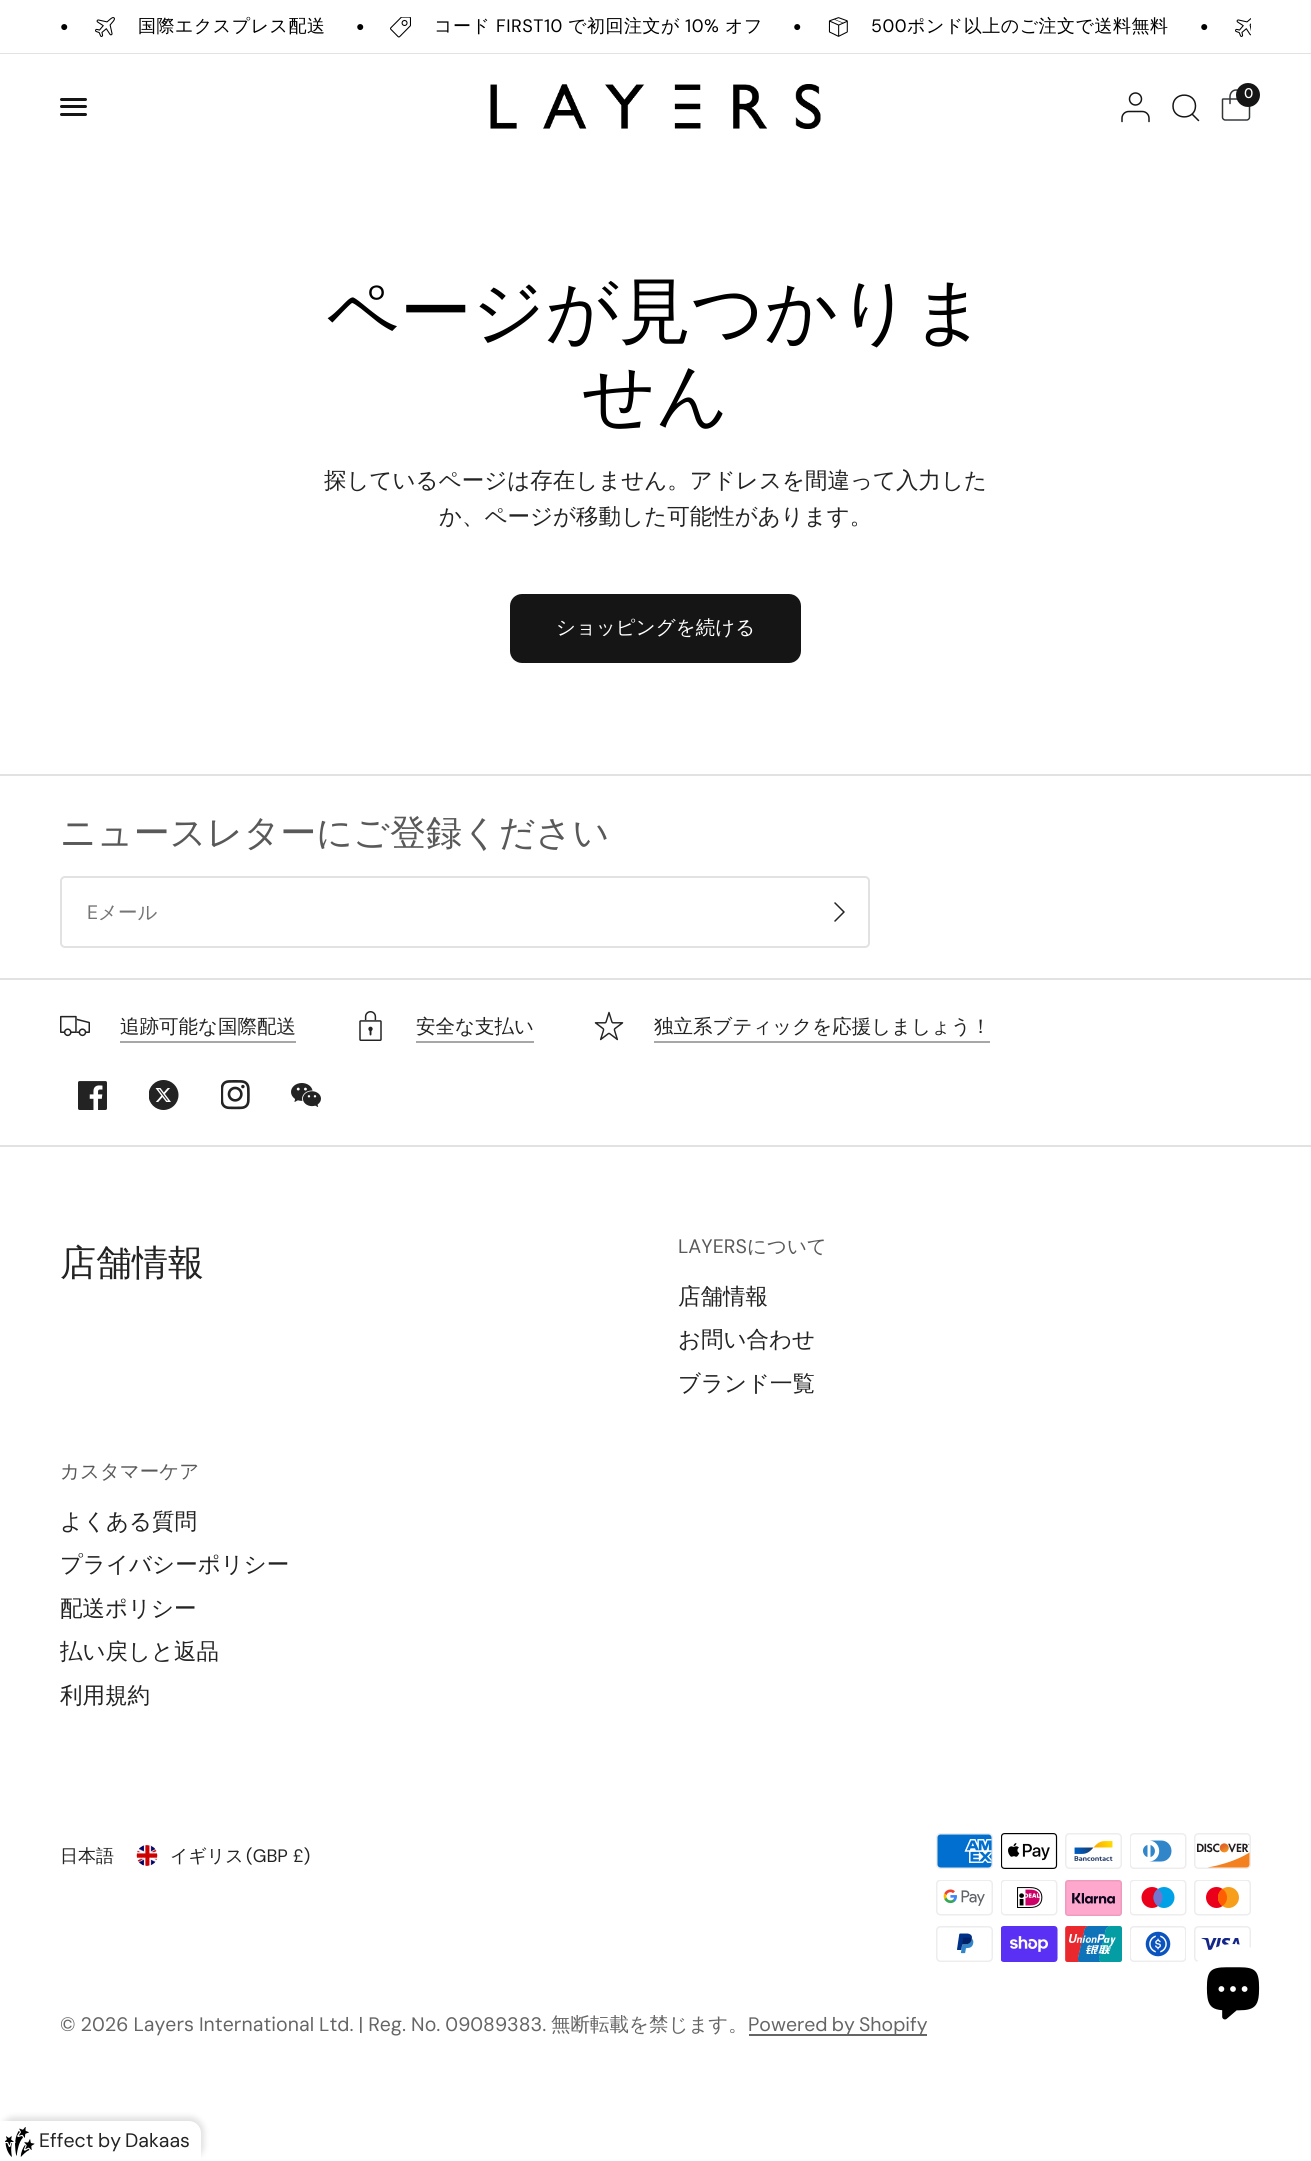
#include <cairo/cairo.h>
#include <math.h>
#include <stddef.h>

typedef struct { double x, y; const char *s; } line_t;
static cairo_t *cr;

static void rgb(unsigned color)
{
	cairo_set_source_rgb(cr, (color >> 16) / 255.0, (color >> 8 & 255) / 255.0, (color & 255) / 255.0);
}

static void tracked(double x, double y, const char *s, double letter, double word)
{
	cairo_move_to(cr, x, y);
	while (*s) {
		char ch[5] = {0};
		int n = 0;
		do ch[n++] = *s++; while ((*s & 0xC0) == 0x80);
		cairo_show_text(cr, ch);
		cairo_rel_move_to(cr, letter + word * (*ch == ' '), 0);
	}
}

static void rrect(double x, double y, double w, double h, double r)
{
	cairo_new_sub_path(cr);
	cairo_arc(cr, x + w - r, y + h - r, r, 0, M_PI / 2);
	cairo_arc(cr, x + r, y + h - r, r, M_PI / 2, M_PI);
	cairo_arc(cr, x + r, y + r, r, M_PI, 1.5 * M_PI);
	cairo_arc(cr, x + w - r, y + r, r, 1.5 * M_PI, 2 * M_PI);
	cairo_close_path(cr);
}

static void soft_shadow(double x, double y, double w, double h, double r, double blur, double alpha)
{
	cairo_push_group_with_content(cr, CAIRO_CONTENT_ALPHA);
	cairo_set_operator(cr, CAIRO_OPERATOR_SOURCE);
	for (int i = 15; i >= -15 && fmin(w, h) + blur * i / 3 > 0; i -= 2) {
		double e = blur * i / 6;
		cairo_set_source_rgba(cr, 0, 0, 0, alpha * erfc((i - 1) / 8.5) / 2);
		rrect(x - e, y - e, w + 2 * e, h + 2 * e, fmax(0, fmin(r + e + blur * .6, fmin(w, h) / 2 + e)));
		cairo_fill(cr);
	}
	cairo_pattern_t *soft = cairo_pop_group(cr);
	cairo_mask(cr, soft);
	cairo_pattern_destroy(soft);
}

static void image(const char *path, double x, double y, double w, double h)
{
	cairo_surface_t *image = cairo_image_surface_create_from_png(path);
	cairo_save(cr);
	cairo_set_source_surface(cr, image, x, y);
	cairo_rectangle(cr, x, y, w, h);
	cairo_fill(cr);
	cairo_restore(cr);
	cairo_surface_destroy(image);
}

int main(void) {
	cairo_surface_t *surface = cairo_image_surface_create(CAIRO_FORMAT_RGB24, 1311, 2161);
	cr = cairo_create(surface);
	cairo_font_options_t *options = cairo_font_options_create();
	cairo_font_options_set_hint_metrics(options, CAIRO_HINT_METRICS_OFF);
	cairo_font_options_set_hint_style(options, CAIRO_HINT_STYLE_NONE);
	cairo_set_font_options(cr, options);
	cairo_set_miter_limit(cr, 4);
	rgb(0xffffff);
	cairo_paint(cr);
	rgb(0xe2e2e2);
	cairo_rectangle(cr, 0, 53, 1311, 1);
	cairo_fill(cr);
	image("img/1.png", 95, 17, 20, 20);
	image("img/2.png", 390, 17, 21, 21);
	image("img/3.png", 828, 17, 20, 20);
	image("img/4.png", 1235, 18, 16, 19);
	image("img/5.png", 490, 84, 331, 45);
	image("img/6.png", 1121, 92, 29, 31);
	cairo_new_path(cr);
	cairo_move_to(cr, 1192, 114);
	cairo_line_to(cr, 1198.5, 120.5);
	cairo_move_to(cr, 1195.5, 106);
	cairo_curve_to(cr, 1195.5, 120.5, 1173, 120.5, 1173, 106);
	cairo_curve_to(cr, 1173, 91.5, 1195.5, 91.5, 1195.5, 106);
	cairo_close_path(cr);
	rgb(0x151515);
	cairo_set_line_width(cr, 1.5);
	cairo_set_line_cap(cr, CAIRO_LINE_CAP_ROUND);
	cairo_set_line_join(cr, CAIRO_LINE_JOIN_ROUND);
	cairo_stroke(cr);
	image("img/7.png", 1221, 89, 30, 32);
	cairo_arc(cr, 1248, 95, 12, 0, 2 * M_PI);
	cairo_fill(cr);
	rrect(60, 98, 27, 3, 1.5);
	cairo_fill(cr);
	rrect(60, 105, 27, 3, 1.5);
	cairo_fill(cr);
	rrect(60, 113, 27, 3, 1.5);
	cairo_fill(cr);
	rrect(511, 595, 289, 67, 11);
	cairo_fill_preserve(cr);
	cairo_set_line_width(cr, 2);
	cairo_set_line_cap(cr, CAIRO_LINE_CAP_BUTT);
	cairo_set_line_join(cr, CAIRO_LINE_JOIN_MITER);
	cairo_stroke(cr);
	rgb(0xe2e2e2);
	cairo_rectangle(cr, 0, 774, 1311, 2);
	cairo_fill(cr);
	rrect(61, 877, 808, 70, 4);
	cairo_stroke(cr);
	cairo_new_path(cr);
	cairo_move_to(cr, 835, 903);
	cairo_line_to(cr, 844, 912);
	cairo_line_to(cr, 835, 921);
	rgb(0x232323);
	cairo_set_line_width(cr, 1.5);
	cairo_set_line_cap(cr, CAIRO_LINE_CAP_ROUND);
	cairo_set_line_join(cr, CAIRO_LINE_JOIN_ROUND);
	cairo_stroke(cr);
	rgb(0xe2e2e2);
	cairo_rectangle(cr, 0, 978, 1311, 2);
	cairo_fill(cr);
	image("img/8.png", 60, 1015, 30, 22);
	rgb(0xa7a7a7);
	cairo_rectangle(cr, 120, 1041, 176, 2);
	cairo_fill(cr);
	image("img/9.png", 359, 1011, 23, 30);
	cairo_rectangle(cr, 416, 1041, 118, 2);
	cairo_fill(cr);
	image("img/10.png", 594, 1011, 30, 30);
	cairo_rectangle(cr, 654, 1041, 336, 2);
	cairo_fill(cr);
	image("img/11.png", 78, 1081, 29, 29);
	image("img/12.png", 149, 1080, 30, 30);
	image("img/13.png", 221, 1080, 29, 30);
	image("img/14.png", 291, 1083, 30, 24);
	rgb(0xe2e2e2);
	cairo_rectangle(cr, 0, 1145, 1311, 2);
	cairo_fill(cr);
	image("img/15.png", 136, 1845, 22, 21);
	image("img/16.png", 936, 1833, 57, 36);
	image("img/17.png", 1001, 1833, 57, 36);
	image("img/18.png", 1065, 1833, 57, 36);
	image("img/19.png", 1130, 1833, 57, 36);
	image("img/20.png", 1194, 1833, 57, 36);
	image("img/21.png", 936, 1880, 57, 36);
	image("img/22.png", 1001, 1880, 57, 36);
	image("img/23.png", 1065, 1880, 57, 36);
	image("img/24.png", 1130, 1880, 57, 36);
	image("img/25.png", 1194, 1880, 57, 36);
	image("img/26.png", 936, 1926, 57, 36);
	image("img/27.png", 1001, 1926, 57, 36);
	image("img/28.png", 1065, 1926, 57, 36);
	image("img/29.png", 1130, 1926, 56, 36);
	image("img/30.png", 1194, 1926, 57, 36);
	rgb(0x656565);
	cairo_rectangle(cr, 749, 2034, 178, 2);
	cairo_fill(cr);
	rgb(0xffffff);
	cairo_arc(cr, 1233, 1989, 45, 0, 2 * M_PI);
	cairo_fill(cr);
	image("img/31.png", 1206, 1967, 54, 53);
	rgb(0x403c43);
	soft_shadow(0, 2117, 204, 43, 14, 3, 0.16);
	rgb(0xffffff);
	cairo_new_path(cr);
	cairo_move_to(cr, 0, 2121);
	cairo_line_to(cr, 189, 2121);
	cairo_curve_to(cr, 195.5, 2121, 201, 2126.5, 201, 2133);
	cairo_line_to(cr, 201, 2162);
	cairo_line_to(cr, 0, 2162);
	cairo_close_path(cr);
	cairo_fill(cr);
	image("img/32.png", 5, 2127, 30, 30);
	cairo_select_font_face(cr, "Liberation Sans", CAIRO_FONT_SLANT_NORMAL, CAIRO_FONT_WEIGHT_NORMAL);
	cairo_set_font_size(cr, 14);
	rgb(0x000000);
	tracked(60, 31, "●", 0.5, 0);
	cairo_select_font_face(cr, "WenQuanYi Zen Hei Medium", CAIRO_FONT_SLANT_NORMAL, CAIRO_FONT_WEIGHT_NORMAL);
	cairo_set_font_size(cr, 18);
	tracked(138, 32, "国際エクスプレス配送", 0.5, 0);
	cairo_select_font_face(cr, "Liberation Sans", CAIRO_FONT_SLANT_NORMAL, CAIRO_FONT_WEIGHT_NORMAL);
	cairo_set_font_size(cr, 14);
	tracked(356, 31, "●", 0.5, 0);
	cairo_select_font_face(cr, "WenQuanYi Zen Hei Medium", CAIRO_FONT_SLANT_NORMAL, CAIRO_FONT_WEIGHT_NORMAL);
	cairo_set_font_size(cr, 18);
	tracked(434, 32, "コード", 0.5, 0);
	cairo_select_font_face(cr, "DM Sans", CAIRO_FONT_SLANT_NORMAL, CAIRO_FONT_WEIGHT_NORMAL);
	tracked(496, 32, "FIRST10", 0.5, 0);
	cairo_select_font_face(cr, "WenQuanYi Zen Hei Medium", CAIRO_FONT_SLANT_NORMAL, CAIRO_FONT_WEIGHT_NORMAL);
	tracked(568, 32, "で初回注文が", 0.5, 0);
	cairo_select_font_face(cr, "DM Sans", CAIRO_FONT_SLANT_NORMAL, CAIRO_FONT_WEIGHT_NORMAL);
	tracked(685, 32, "10%", 0.5, 0);
	cairo_select_font_face(cr, "WenQuanYi Zen Hei Medium", CAIRO_FONT_SLANT_NORMAL, CAIRO_FONT_WEIGHT_NORMAL);
	tracked(725, 32, "オフ", 0.5, 0);
	cairo_select_font_face(cr, "Liberation Sans", CAIRO_FONT_SLANT_NORMAL, CAIRO_FONT_WEIGHT_NORMAL);
	cairo_set_font_size(cr, 14);
	tracked(793, 31, "●", 0.5, 0);
	cairo_select_font_face(cr, "DM Sans", CAIRO_FONT_SLANT_NORMAL, CAIRO_FONT_WEIGHT_NORMAL);
	cairo_set_font_size(cr, 18);
	tracked(871, 32, "500", 0.5, 0);
	cairo_select_font_face(cr, "WenQuanYi Zen Hei Medium", CAIRO_FONT_SLANT_NORMAL, CAIRO_FONT_WEIGHT_NORMAL);
	tracked(907, 32, "ポンド以上のご注文で送料無料", 0.5, 0);
	cairo_select_font_face(cr, "Liberation Sans", CAIRO_FONT_SLANT_NORMAL, CAIRO_FONT_WEIGHT_NORMAL);
	cairo_set_font_size(cr, 14);
	tracked(1200, 31, "●", 0.5, 0);
	cairo_select_font_face(cr, "DM Sans Medium", CAIRO_FONT_SLANT_NORMAL, CAIRO_FONT_WEIGHT_NORMAL);
	rgb(0xffffff);
	cairo_move_to(cr, 1244, 98);
	cairo_show_text(cr, "0");
	cairo_select_font_face(cr, "WenQuanYi Zen Hei Medium", CAIRO_FONT_SLANT_NORMAL, CAIRO_FONT_WEIGHT_NORMAL);
	cairo_set_font_size(cr, 72);
	rgb(0x000000);
	cairo_move_to(cr, 326, 336);
	cairo_show_text(cr, "ページが見つかりま");
	cairo_move_to(cr, 582, 420);
	cairo_show_text(cr, "せん");
	cairo_set_font_size(cr, 22.5);
	rgb(0x232323);
	cairo_move_to(cr, 324, 488);
	cairo_show_text(cr, "探しているページは存在しません。アドレスを間違って入力した");
	cairo_move_to(cr, 439, 524);
	cairo_show_text(cr, "か、ページが移動した可能性があります。");
	cairo_set_font_size(cr, 19.5);
	rgb(0xffffff);
	cairo_move_to(cr, 556, 634);
	cairo_show_text(cr, "ショッピングを続ける");
	cairo_set_font_size(cr, 36);
	rgb(0x595959);
	cairo_move_to(cr, 60, 845);
	cairo_show_text(cr, "ニュースレターにご登録ください");
	cairo_select_font_face(cr, "DM Sans", CAIRO_FONT_SLANT_NORMAL, CAIRO_FONT_WEIGHT_NORMAL);
	cairo_set_font_size(cr, 19.5);
	rgb(0x757575);
	cairo_move_to(cr, 87, 919);
	cairo_show_text(cr, "E");
	cairo_select_font_face(cr, "WenQuanYi Zen Hei Medium", CAIRO_FONT_SLANT_NORMAL, CAIRO_FONT_WEIGHT_NORMAL);
	cairo_move_to(cr, 98, 919);
	cairo_show_text(cr, "メール");
	rgb(0x232323);
	{
		static const line_t items[] = {
			{120, 1033, "追跡可能な国際配送"},
			{416, 1033, "安全な支払い"},
			{654, 1033, "独立系ブティックを応援しましょう！"},
		};
		for (size_t i = 0; i < sizeof items / sizeof *items; i++) {
			cairo_move_to(cr, items[i].x, items[i].y);
			cairo_show_text(cr, items[i].s);
		}
	}
	cairo_set_font_size(cr, 36);
	cairo_move_to(cr, 60, 1275);
	cairo_show_text(cr, "店舗情報");
	cairo_select_font_face(cr, "DM Sans", CAIRO_FONT_SLANT_NORMAL, CAIRO_FONT_WEIGHT_NORMAL);
	cairo_set_font_size(cr, 19.5);
	rgb(0x595959);
	cairo_move_to(cr, 678, 1253);
	cairo_show_text(cr, "LAYERS");
	cairo_select_font_face(cr, "WenQuanYi Zen Hei Medium", CAIRO_FONT_SLANT_NORMAL, CAIRO_FONT_WEIGHT_NORMAL);
	cairo_move_to(cr, 747, 1253);
	cairo_show_text(cr, "について");
	cairo_set_font_size(cr, 22.5);
	rgb(0x232323);
	{
		static const line_t items[] = {
			{678, 1304, "店舗情報"},
			{678, 1347, "お問い合わせ"},
			{678, 1391, "ブランド一覧"},
		};
		for (size_t i = 0; i < sizeof items / sizeof *items; i++) {
			cairo_move_to(cr, items[i].x, items[i].y);
			cairo_show_text(cr, items[i].s);
		}
	}
	cairo_set_font_size(cr, 19.5);
	rgb(0x595959);
	cairo_move_to(cr, 60, 1478);
	cairo_show_text(cr, "カスタマーケア");
	cairo_set_font_size(cr, 22.5);
	rgb(0x232323);
	{
		static const line_t items[] = {
			{60, 1529, "よくある質問"},
			{60, 1572, "プライバシーポリシー"},
			{60, 1616, "配送ポリシー"},
			{60, 1659, "払い戻しと返品"},
			{60, 1703, "利用規約"},
		};
		for (size_t i = 0; i < sizeof items / sizeof *items; i++) {
			cairo_move_to(cr, items[i].x, items[i].y);
			cairo_show_text(cr, items[i].s);
		}
	}
	cairo_set_font_size(cr, 18);
	cairo_move_to(cr, 60, 1862);
	cairo_show_text(cr, "日本語");
	cairo_move_to(cr, 170, 1862);
	cairo_show_text(cr, "イギリス");
	cairo_select_font_face(cr, "DM Sans", CAIRO_FONT_SLANT_NORMAL, CAIRO_FONT_WEIGHT_NORMAL);
	cairo_move_to(cr, 246, 1862);
	cairo_show_text(cr, "(GBP £)");
	cairo_set_font_size(cr, 19.5);
	rgb(0x656565);
	tracked(60, 2031, "© 2026 Layers International Ltd. | Reg. No. 09089383.", 0, -0.25);
	cairo_select_font_face(cr, "WenQuanYi Zen Hei Medium", CAIRO_FONT_SLANT_NORMAL, CAIRO_FONT_WEIGHT_NORMAL);
	cairo_move_to(cr, 551, 2031);
	cairo_show_text(cr, "無断転載を禁じます。");
	cairo_select_font_face(cr, "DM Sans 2", CAIRO_FONT_SLANT_NORMAL, CAIRO_FONT_WEIGHT_NORMAL);
	tracked(748, 2031, "Powered by Shopify", 0, -1);
	rgb(0x232323);
	{
		static const line_t items[] = {
			{39, 2147, "Effect"},
			{98, 2147, "by"},
			{125, 2147, "Dakaas"},
		};
		for (size_t i = 0; i < sizeof items / sizeof *items; i++) {
			cairo_move_to(cr, items[i].x, items[i].y);
			cairo_show_text(cr, items[i].s);
		}
	}
	cairo_surface_write_to_png(surface, "page.png");
	cairo_font_options_destroy(options);
	cairo_destroy(cr);
	cairo_surface_destroy(surface);
	return 0;
}
